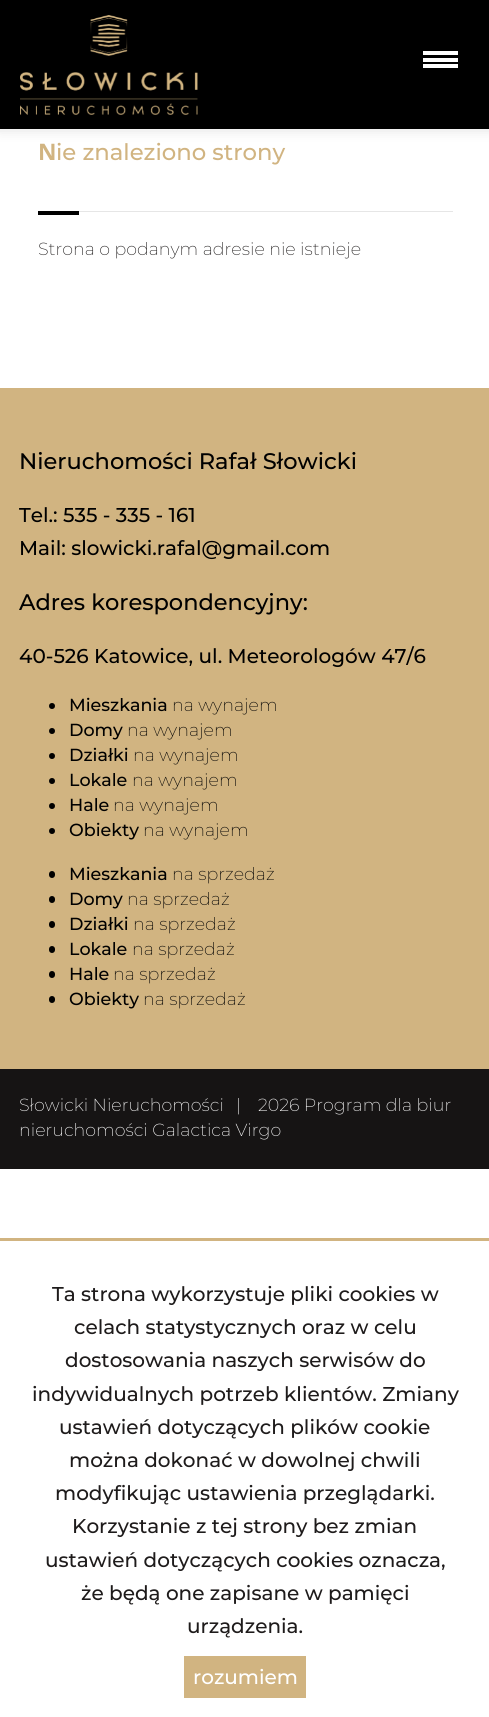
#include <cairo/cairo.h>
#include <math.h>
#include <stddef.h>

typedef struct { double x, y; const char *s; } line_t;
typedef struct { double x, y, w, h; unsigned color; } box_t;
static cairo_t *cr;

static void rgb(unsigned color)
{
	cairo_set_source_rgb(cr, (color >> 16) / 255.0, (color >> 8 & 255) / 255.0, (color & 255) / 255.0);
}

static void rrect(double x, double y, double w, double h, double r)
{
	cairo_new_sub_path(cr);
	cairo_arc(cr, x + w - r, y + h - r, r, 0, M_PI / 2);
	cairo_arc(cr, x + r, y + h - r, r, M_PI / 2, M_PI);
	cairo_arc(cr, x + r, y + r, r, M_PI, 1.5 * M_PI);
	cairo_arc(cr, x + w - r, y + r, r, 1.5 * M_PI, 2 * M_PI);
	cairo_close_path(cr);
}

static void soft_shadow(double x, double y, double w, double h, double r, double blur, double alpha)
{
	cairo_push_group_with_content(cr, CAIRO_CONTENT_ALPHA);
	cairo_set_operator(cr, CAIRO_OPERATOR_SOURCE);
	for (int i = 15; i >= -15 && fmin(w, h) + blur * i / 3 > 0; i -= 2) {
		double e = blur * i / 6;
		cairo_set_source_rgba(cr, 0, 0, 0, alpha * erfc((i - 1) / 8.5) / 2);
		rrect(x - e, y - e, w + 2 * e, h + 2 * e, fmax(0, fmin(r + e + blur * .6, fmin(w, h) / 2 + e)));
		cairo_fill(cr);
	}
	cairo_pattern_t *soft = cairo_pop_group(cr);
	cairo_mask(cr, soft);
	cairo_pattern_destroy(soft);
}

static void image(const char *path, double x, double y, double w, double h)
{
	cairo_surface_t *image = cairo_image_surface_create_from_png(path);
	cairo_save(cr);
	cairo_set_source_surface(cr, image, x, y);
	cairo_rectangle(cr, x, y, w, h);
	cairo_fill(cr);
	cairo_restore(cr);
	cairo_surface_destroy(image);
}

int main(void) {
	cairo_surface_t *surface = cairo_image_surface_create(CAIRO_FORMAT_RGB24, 489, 1717);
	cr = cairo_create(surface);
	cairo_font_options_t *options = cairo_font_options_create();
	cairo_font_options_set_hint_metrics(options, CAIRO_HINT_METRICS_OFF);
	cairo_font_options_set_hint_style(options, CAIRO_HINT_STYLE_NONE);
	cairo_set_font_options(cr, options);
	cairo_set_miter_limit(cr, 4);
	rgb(0xffffff);
	cairo_paint(cr);
	rgb(0x000000);
	soft_shadow(0, 0, 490, 131, 0, 6, 0.1);
	rgb(0x000000);
	cairo_rectangle(cr, 0, 0, 489, 129);
	cairo_fill(cr);
	rgb(0xf2f2f2);
	cairo_rectangle(cr, 0, 129, 489, 3);
	cairo_fill(cr);
	image("img/1.png", 20, 15, 178, 100);
	{
		static const box_t items[] = {
			{423, 51, 35, 4, 0xffffff},
			{423, 58, 35, 4, 0xffffff},
			{423, 64, 35, 4, 0xffffff},
			{79, 211, 374, 1, 0xe6e6e6},
			{38, 211, 41, 4, 0x000000},
			{0, 388, 489, 681, 0xd1b481},
		};
		for (size_t i = 0; i < sizeof items / sizeof *items; i++) {
			rgb(items[i].color);
			cairo_rectangle(cr, items[i].x, items[i].y, items[i].w, items[i].h);
			cairo_fill(cr);
		}
	}
	rgb(0x000000);
	cairo_arc(cr, 52, 706, 3, 0, 2 * M_PI);
	cairo_fill(cr);
	cairo_arc(cr, 52, 731, 3, 0, 2 * M_PI);
	cairo_fill(cr);
	cairo_arc(cr, 52, 756, 3, 0, 2 * M_PI);
	cairo_fill(cr);
	cairo_arc(cr, 52, 781, 3, 0, 2 * M_PI);
	cairo_fill(cr);
	cairo_arc(cr, 52, 806, 3, 0, 2 * M_PI);
	cairo_fill(cr);
	cairo_arc(cr, 52, 831, 3, 0, 2 * M_PI);
	cairo_fill(cr);
	rrect(49, 871, 6, 7, 3);
	cairo_fill(cr);
	rrect(49, 896, 6, 7, 3);
	cairo_fill(cr);
	rrect(49, 921, 6, 7, 3);
	cairo_fill(cr);
	rrect(49, 946, 6, 7, 3);
	cairo_fill(cr);
	rrect(49, 971, 6, 7, 3);
	cairo_fill(cr);
	rrect(49, 996, 6, 7, 3);
	cairo_fill(cr);
	{
		static const box_t items[] = {
			{0, 1069, 489, 100, 0x161414},
			{0, 1238, 489, 3, 0xd1b481},
			{184, 1656, 122, 42, 0xd1b481},
		};
		for (size_t i = 0; i < sizeof items / sizeof *items; i++) {
			rgb(items[i].color);
			cairo_rectangle(cr, items[i].x, items[i].y, items[i].w, items[i].h);
			cairo_fill(cr);
		}
	}
	cairo_select_font_face(cr, "Noto Sans", CAIRO_FONT_SLANT_NORMAL, CAIRO_FONT_WEIGHT_BOLD);
	cairo_set_font_size(cr, 22.75);
	cairo_move_to(cr, 38, 160);
	cairo_show_text(cr, "N");
	cairo_select_font_face(cr, "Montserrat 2 Thin", CAIRO_FONT_SLANT_NORMAL, CAIRO_FONT_WEIGHT_NORMAL);
	cairo_move_to(cr, 56, 160);
	cairo_show_text(cr, "ie znaleziono strony");
	cairo_select_font_face(cr, "Montserrat Thin", CAIRO_FONT_SLANT_NORMAL, CAIRO_FONT_WEIGHT_NORMAL);
	cairo_set_font_size(cr, 17.5);
	rgb(0x1e1b1b);
	cairo_move_to(cr, 38, 255);
	cairo_show_text(cr, "Strona o podanym adresie nie istnieje");
	cairo_select_font_face(cr, "Montserrat 2 Thin", CAIRO_FONT_SLANT_NORMAL, CAIRO_FONT_WEIGHT_NORMAL);
	cairo_set_font_size(cr, 22.5);
	rgb(0x000000);
	cairo_move_to(cr, 19, 469);
	cairo_show_text(cr, "Nieruchomości Rafał Słowicki");
	cairo_set_font_size(cr, 20);
	cairo_move_to(cr, 19, 522);
	cairo_show_text(cr, "Tel.: 535 - 335 - 161");
	cairo_move_to(cr, 19, 555);
	cairo_show_text(cr, "Mail: slowicki.rafal@gmail.com");
	cairo_set_font_size(cr, 22.5);
	cairo_move_to(cr, 19, 610);
	cairo_show_text(cr, "Adres korespondencyjny:");
	cairo_set_font_size(cr, 20);
	cairo_move_to(cr, 19, 663);
	cairo_show_text(cr, "40-526 Katowice, ul. Meteorologów 47/6");
	cairo_set_font_size(cr, 17.5);
	cairo_move_to(cr, 69, 711);
	cairo_show_text(cr, "Mieszkania");
	cairo_select_font_face(cr, "Montserrat Thin", CAIRO_FONT_SLANT_NORMAL, CAIRO_FONT_WEIGHT_NORMAL);
	cairo_move_to(cr, 172, 711);
	cairo_show_text(cr, "na wynajem");
	cairo_select_font_face(cr, "Montserrat 2 Thin", CAIRO_FONT_SLANT_NORMAL, CAIRO_FONT_WEIGHT_NORMAL);
	cairo_move_to(cr, 69, 736);
	cairo_show_text(cr, "Domy");
	cairo_select_font_face(cr, "Montserrat Thin", CAIRO_FONT_SLANT_NORMAL, CAIRO_FONT_WEIGHT_NORMAL);
	cairo_move_to(cr, 127, 736);
	cairo_show_text(cr, "na wynajem");
	cairo_select_font_face(cr, "Montserrat 2 Thin", CAIRO_FONT_SLANT_NORMAL, CAIRO_FONT_WEIGHT_NORMAL);
	cairo_move_to(cr, 69, 761);
	cairo_show_text(cr, "Działki");
	cairo_select_font_face(cr, "Montserrat Thin", CAIRO_FONT_SLANT_NORMAL, CAIRO_FONT_WEIGHT_NORMAL);
	cairo_move_to(cr, 133, 761);
	cairo_show_text(cr, "na wynajem");
	cairo_select_font_face(cr, "Montserrat 2 Thin", CAIRO_FONT_SLANT_NORMAL, CAIRO_FONT_WEIGHT_NORMAL);
	cairo_move_to(cr, 69, 786);
	cairo_show_text(cr, "Lokale");
	cairo_select_font_face(cr, "Montserrat Thin", CAIRO_FONT_SLANT_NORMAL, CAIRO_FONT_WEIGHT_NORMAL);
	cairo_move_to(cr, 132, 786);
	cairo_show_text(cr, "na wynajem");
	cairo_select_font_face(cr, "Montserrat 2 Thin", CAIRO_FONT_SLANT_NORMAL, CAIRO_FONT_WEIGHT_NORMAL);
	cairo_move_to(cr, 69, 811);
	cairo_show_text(cr, "Hale");
	cairo_select_font_face(cr, "Montserrat Thin", CAIRO_FONT_SLANT_NORMAL, CAIRO_FONT_WEIGHT_NORMAL);
	cairo_move_to(cr, 113, 811);
	cairo_show_text(cr, "na wynajem");
	cairo_select_font_face(cr, "Montserrat 2 Thin", CAIRO_FONT_SLANT_NORMAL, CAIRO_FONT_WEIGHT_NORMAL);
	cairo_move_to(cr, 69, 836);
	cairo_show_text(cr, "Obiekty");
	cairo_select_font_face(cr, "Montserrat Thin", CAIRO_FONT_SLANT_NORMAL, CAIRO_FONT_WEIGHT_NORMAL);
	cairo_move_to(cr, 143, 836);
	cairo_show_text(cr, "na wynajem");
	cairo_select_font_face(cr, "Montserrat 2 Thin", CAIRO_FONT_SLANT_NORMAL, CAIRO_FONT_WEIGHT_NORMAL);
	cairo_move_to(cr, 69, 880);
	cairo_show_text(cr, "Mieszkania");
	cairo_select_font_face(cr, "Montserrat Thin", CAIRO_FONT_SLANT_NORMAL, CAIRO_FONT_WEIGHT_NORMAL);
	cairo_move_to(cr, 172, 880);
	cairo_show_text(cr, "na sprzedaż");
	cairo_select_font_face(cr, "Montserrat 2 Thin", CAIRO_FONT_SLANT_NORMAL, CAIRO_FONT_WEIGHT_NORMAL);
	cairo_move_to(cr, 69, 905);
	cairo_show_text(cr, "Domy");
	cairo_select_font_face(cr, "Montserrat Thin", CAIRO_FONT_SLANT_NORMAL, CAIRO_FONT_WEIGHT_NORMAL);
	cairo_move_to(cr, 127, 905);
	cairo_show_text(cr, "na sprzedaż");
	cairo_select_font_face(cr, "Montserrat 2 Thin", CAIRO_FONT_SLANT_NORMAL, CAIRO_FONT_WEIGHT_NORMAL);
	cairo_move_to(cr, 69, 930);
	cairo_show_text(cr, "Działki");
	cairo_select_font_face(cr, "Montserrat Thin", CAIRO_FONT_SLANT_NORMAL, CAIRO_FONT_WEIGHT_NORMAL);
	cairo_move_to(cr, 133, 930);
	cairo_show_text(cr, "na sprzedaż");
	cairo_select_font_face(cr, "Montserrat 2 Thin", CAIRO_FONT_SLANT_NORMAL, CAIRO_FONT_WEIGHT_NORMAL);
	cairo_move_to(cr, 69, 955);
	cairo_show_text(cr, "Lokale");
	cairo_select_font_face(cr, "Montserrat Thin", CAIRO_FONT_SLANT_NORMAL, CAIRO_FONT_WEIGHT_NORMAL);
	cairo_move_to(cr, 132, 955);
	cairo_show_text(cr, "na sprzedaż");
	cairo_select_font_face(cr, "Montserrat 2 Thin", CAIRO_FONT_SLANT_NORMAL, CAIRO_FONT_WEIGHT_NORMAL);
	cairo_move_to(cr, 69, 980);
	cairo_show_text(cr, "Hale");
	cairo_select_font_face(cr, "Montserrat Thin", CAIRO_FONT_SLANT_NORMAL, CAIRO_FONT_WEIGHT_NORMAL);
	cairo_move_to(cr, 113, 980);
	cairo_show_text(cr, "na sprzedaż");
	cairo_select_font_face(cr, "Montserrat 2 Thin", CAIRO_FONT_SLANT_NORMAL, CAIRO_FONT_WEIGHT_NORMAL);
	cairo_move_to(cr, 69, 1005);
	cairo_show_text(cr, "Obiekty");
	cairo_select_font_face(cr, "Montserrat Thin", CAIRO_FONT_SLANT_NORMAL, CAIRO_FONT_WEIGHT_NORMAL);
	cairo_move_to(cr, 143, 1005);
	cairo_show_text(cr, "na sprzedaż");
	rgb(0xffffff);
	{
		static const line_t items[] = {
			{19, 1111, "Słowicki Nieruchomości"},
			{236, 1111, "|"},
			{258, 1111, "2026 Program dla biur"},
			{19, 1136, "nieruchomości Galactica Virgo"},
		};
		for (size_t i = 0; i < sizeof items / sizeof *items; i++) {
			cairo_move_to(cr, items[i].x, items[i].y);
			cairo_show_text(cr, items[i].s);
		}
	}
	cairo_select_font_face(cr, "Montserrat 2 Thin", CAIRO_FONT_SLANT_NORMAL, CAIRO_FONT_WEIGHT_NORMAL);
	cairo_set_font_size(cr, 20);
	rgb(0x1e1b1b);
	{
		static const line_t items[] = {
			{52, 1301, "Ta strona wykorzystuje pliki cookies w"},
			{74, 1334, "celach statystycznych oraz w celu"},
			{65, 1367, "dostosowania naszych serwisów do"},
			{32, 1401, "indywidualnych potrzeb klientów. Zmiany"},
			{59, 1434, "ustawień dotyczących plików cookie"},
			{69, 1467, "można dokonać w dowolnej chwili"},
			{55, 1500, "modyfikując ustawienia przeglądarki."},
			{72, 1533, "Korzystanie z tej strony bez zmian"},
			{45, 1567, "ustawień dotyczących cookies oznacza,"},
			{81, 1600, "że będą one zapisane w pamięci"},
			{187, 1633, "urządzenia."},
		};
		for (size_t i = 0; i < sizeof items / sizeof *items; i++) {
			cairo_move_to(cr, items[i].x, items[i].y);
			cairo_show_text(cr, items[i].s);
		}
	}
	rgb(0xffffff);
	cairo_move_to(cr, 193, 1684);
	cairo_show_text(cr, "rozumiem");
	cairo_surface_write_to_png(surface, "page.png");
	cairo_font_options_destroy(options);
	cairo_destroy(cr);
	cairo_surface_destroy(surface);
	return 0;
}
